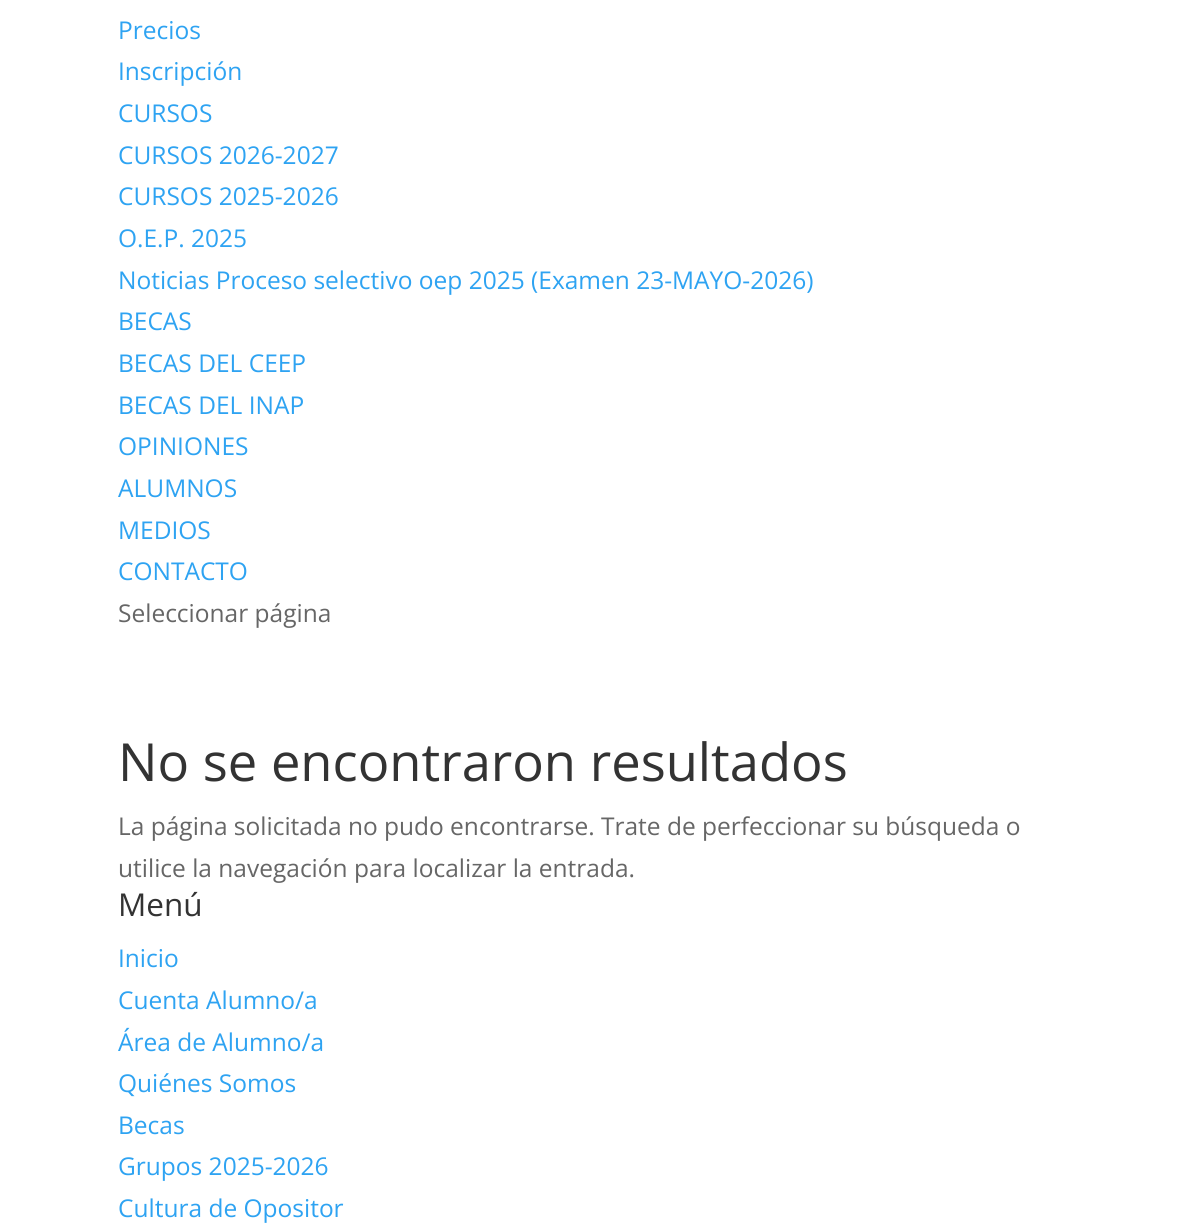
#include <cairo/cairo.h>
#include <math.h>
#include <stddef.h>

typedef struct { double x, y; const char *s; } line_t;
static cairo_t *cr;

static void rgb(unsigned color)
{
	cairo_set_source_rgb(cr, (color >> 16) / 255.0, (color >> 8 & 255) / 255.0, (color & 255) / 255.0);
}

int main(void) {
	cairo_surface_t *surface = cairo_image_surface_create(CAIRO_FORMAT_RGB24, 1179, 1227);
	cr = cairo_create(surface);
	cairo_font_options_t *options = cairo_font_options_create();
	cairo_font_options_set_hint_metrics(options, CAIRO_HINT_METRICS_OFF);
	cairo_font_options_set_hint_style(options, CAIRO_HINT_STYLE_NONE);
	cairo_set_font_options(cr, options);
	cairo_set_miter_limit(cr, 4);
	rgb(0xffffff);
	cairo_paint(cr);
	cairo_select_font_face(cr, "Open Sans", CAIRO_FONT_SLANT_NORMAL, CAIRO_FONT_WEIGHT_NORMAL);
	cairo_set_font_size(cr, 24.5);
	rgb(0x2ea3f2);
	{
		static const line_t items[] = {
			{118, 39, "Precios"},
			{118, 80, "Inscripción"},
			{118, 122, "CURSOS"},
			{118, 164, "CURSOS 2026-2027"},
			{118, 205, "CURSOS 2025-2026"},
			{118, 247, "O.E.P. 2025"},
			{118, 289, "Noticias Proceso selectivo oep 2025 (Examen 23-MAYO-2026)"},
			{118, 330, "BECAS"},
			{118, 372, "BECAS DEL CEEP"},
			{118, 414, "BECAS DEL INAP"},
			{118, 455, "OPINIONES"},
			{118, 497, "ALUMNOS"},
			{118, 539, "MEDIOS"},
			{118, 580, "CONTACTO"},
		};
		for (size_t i = 0; i < sizeof items / sizeof *items; i++) {
			cairo_move_to(cr, items[i].x, items[i].y);
			cairo_show_text(cr, items[i].s);
		}
	}
	rgb(0x666666);
	cairo_move_to(cr, 118, 622);
	cairo_show_text(cr, "Seleccionar página");
	cairo_set_font_size(cr, 52.5);
	rgb(0x333333);
	cairo_move_to(cr, 118, 781);
	cairo_show_text(cr, "No se encontraron resultados");
	cairo_set_font_size(cr, 24.5);
	rgb(0x666666);
	cairo_move_to(cr, 118, 835);
	cairo_show_text(cr, "La página solicitada no pudo encontrarse. Trate de perfeccionar su búsqueda o");
	cairo_move_to(cr, 118, 877);
	cairo_show_text(cr, "utilice la navegación para localizar la entrada.");
	cairo_set_font_size(cr, 31.5);
	rgb(0x333333);
	cairo_move_to(cr, 118, 916);
	cairo_show_text(cr, "Menú");
	cairo_set_font_size(cr, 24.5);
	rgb(0x2ea3f2);
	{
		static const line_t items[] = {
			{118, 967, "Inicio"},
			{118, 1009, "Cuenta Alumno/a"},
			{118, 1051, "Área de Alumno/a"},
			{118, 1092, "Quiénes Somos"},
			{118, 1134, "Becas"},
			{118, 1175, "Grupos 2025-2026"},
			{118, 1217, "Cultura de Opositor"},
		};
		for (size_t i = 0; i < sizeof items / sizeof *items; i++) {
			cairo_move_to(cr, items[i].x, items[i].y);
			cairo_show_text(cr, items[i].s);
		}
	}
	cairo_surface_write_to_png(surface, "page.png");
	cairo_font_options_destroy(options);
	cairo_destroy(cr);
	cairo_surface_destroy(surface);
	return 0;
}
